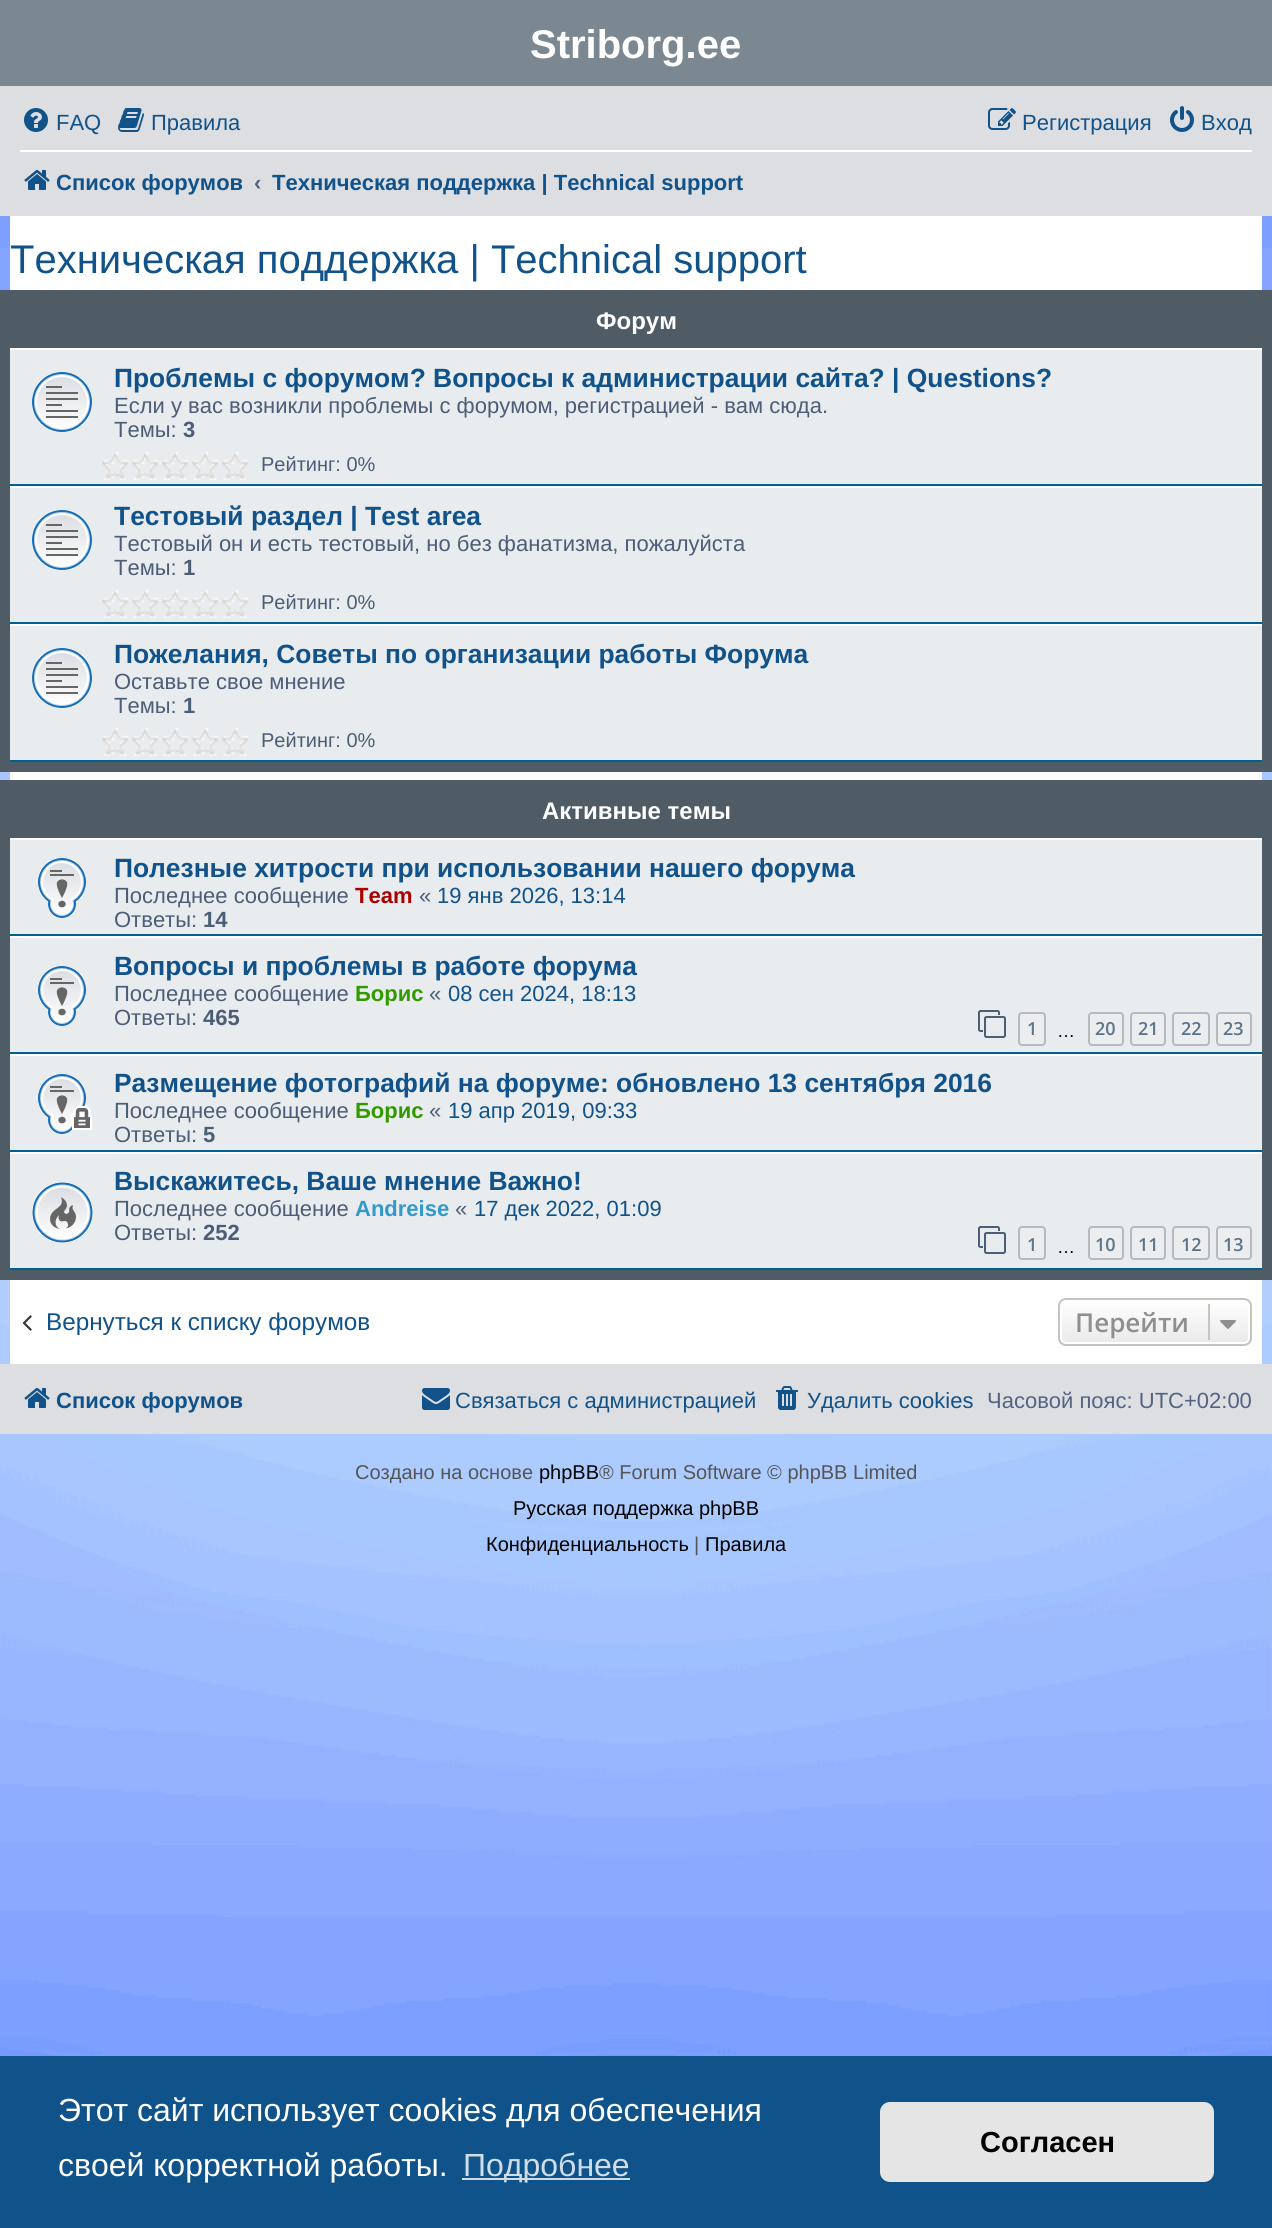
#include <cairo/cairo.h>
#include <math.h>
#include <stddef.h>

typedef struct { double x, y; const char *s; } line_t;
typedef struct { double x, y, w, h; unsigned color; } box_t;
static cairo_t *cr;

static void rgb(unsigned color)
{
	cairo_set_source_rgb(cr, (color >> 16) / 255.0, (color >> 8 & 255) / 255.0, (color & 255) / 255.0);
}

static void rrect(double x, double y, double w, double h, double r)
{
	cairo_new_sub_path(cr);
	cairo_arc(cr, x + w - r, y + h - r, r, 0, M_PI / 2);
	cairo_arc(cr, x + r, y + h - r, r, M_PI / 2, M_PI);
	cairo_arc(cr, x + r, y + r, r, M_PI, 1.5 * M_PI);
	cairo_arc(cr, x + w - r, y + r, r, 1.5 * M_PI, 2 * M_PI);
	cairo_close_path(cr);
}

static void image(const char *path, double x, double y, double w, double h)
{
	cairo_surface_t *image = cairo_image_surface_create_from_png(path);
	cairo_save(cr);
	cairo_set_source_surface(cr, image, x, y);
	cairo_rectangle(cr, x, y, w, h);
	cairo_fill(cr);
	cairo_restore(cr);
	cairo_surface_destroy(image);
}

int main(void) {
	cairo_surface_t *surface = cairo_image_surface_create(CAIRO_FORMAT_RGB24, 1272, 2228);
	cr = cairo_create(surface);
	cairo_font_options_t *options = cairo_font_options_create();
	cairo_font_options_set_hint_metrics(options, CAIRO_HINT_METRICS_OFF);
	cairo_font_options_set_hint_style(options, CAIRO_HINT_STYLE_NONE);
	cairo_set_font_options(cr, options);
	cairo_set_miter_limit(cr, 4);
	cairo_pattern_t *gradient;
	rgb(0xffffff);
	cairo_paint(cr);
	image("img/1.png", 1270, 216, 2, 1840);
	image("img/2.png", 0, 216, 1272, 1840);
	{
		static const box_t items[] = {
			{10, 216, 1252, 1148, 0xffffff},
			{0, 0, 1272, 86, 0x7c8891},
			{0, 86, 1272, 130, 0xdcdee2},
		};
		for (size_t i = 0; i < sizeof items / sizeof *items; i++) {
			rgb(items[i].color);
			cairo_rectangle(cr, items[i].x, items[i].y, items[i].w, items[i].h);
			cairo_fill(cr);
		}
	}
	image("img/3.png", 24, 108, 24, 24);
	image("img/4.png", 118, 108, 26, 24);
	image("img/5.png", 988, 108, 28, 22);
	image("img/6.png", 1170, 106, 24, 26);
	rgb(0xffffff);
	cairo_rectangle(cr, 20, 150, 1232, 2);
	cairo_fill(cr);
	image("img/7.png", 24, 170, 26, 20);
	{
		static const box_t items[] = {
			{0, 290, 1272, 482, 0x505c65},
			{10, 350, 1252, 134, 0xe8ecee},
			{10, 348, 1252, 2, 0xffffff},
			{10, 484, 1252, 2, 0x00608f},
		};
		for (size_t i = 0; i < sizeof items / sizeof *items; i++) {
			rgb(items[i].color);
			cairo_rectangle(cr, items[i].x, items[i].y, items[i].w, items[i].h);
			cairo_fill(cr);
		}
	}
	image("img/8.png", 32, 372, 60, 60);
	image("img/9.png", 100, 452, 150, 28);
	{
		static const box_t items[] = {
			{10, 488, 1252, 134, 0xe8ecee},
			{10, 486, 1252, 2, 0xffffff},
			{10, 622, 1252, 2, 0x00608f},
		};
		for (size_t i = 0; i < sizeof items / sizeof *items; i++) {
			rgb(items[i].color);
			cairo_rectangle(cr, items[i].x, items[i].y, items[i].w, items[i].h);
			cairo_fill(cr);
		}
	}
	image("img/8.png", 32, 510, 60, 60);
	image("img/9.png", 100, 590, 150, 28);
	{
		static const box_t items[] = {
			{10, 626, 1252, 134, 0xe8ecee},
			{10, 624, 1252, 2, 0xffffff},
			{10, 760, 1252, 2, 0x00608f},
		};
		for (size_t i = 0; i < sizeof items / sizeof *items; i++) {
			rgb(items[i].color);
			cairo_rectangle(cr, items[i].x, items[i].y, items[i].w, items[i].h);
			cairo_fill(cr);
		}
	}
	image("img/8.png", 32, 648, 60, 60);
	image("img/9.png", 100, 728, 150, 28);
	{
		static const box_t items[] = {
			{0, 780, 1272, 500, 0x505c65},
			{10, 840, 1252, 94, 0xe8ecee},
			{10, 838, 1252, 2, 0xffffff},
			{10, 934, 1252, 2, 0x00608f},
		};
		for (size_t i = 0; i < sizeof items / sizeof *items; i++) {
			rgb(items[i].color);
			cairo_rectangle(cr, items[i].x, items[i].y, items[i].w, items[i].h);
			cairo_fill(cr);
		}
	}
	image("img/10.png", 38, 858, 48, 60);
	{
		static const box_t items[] = {
			{10, 938, 1252, 114, 0xe8ecee},
			{10, 936, 1252, 2, 0xffffff},
			{10, 1052, 1252, 2, 0x00608f},
		};
		for (size_t i = 0; i < sizeof items / sizeof *items; i++) {
			rgb(items[i].color);
			cairo_rectangle(cr, items[i].x, items[i].y, items[i].w, items[i].h);
			cairo_fill(cr);
		}
	}
	image("img/10.png", 38, 966, 48, 60);
	image("img/11.png", 978, 1010, 28, 28);
	rgb(0xecedee);
	rrect(1019, 1013, 26, 32, 3);
	cairo_fill_preserve(cr);
	rgb(0xb4bac0);
	cairo_stroke(cr);
	rgb(0xecedee);
	rrect(1089, 1013, 34, 32, 3);
	cairo_fill_preserve(cr);
	rgb(0xb4bac0);
	cairo_stroke(cr);
	rgb(0xecedee);
	rrect(1131, 1013, 34, 32, 3);
	cairo_fill_preserve(cr);
	rgb(0xb4bac0);
	cairo_stroke(cr);
	rgb(0xecedee);
	rrect(1173, 1013, 36, 32, 3);
	cairo_fill_preserve(cr);
	rgb(0xb4bac0);
	cairo_stroke(cr);
	rgb(0xecedee);
	rrect(1217, 1013, 34, 32, 3);
	cairo_fill_preserve(cr);
	rgb(0xb4bac0);
	cairo_stroke(cr);
	{
		static const box_t items[] = {
			{10, 1056, 1252, 94, 0xe8ecee},
			{10, 1054, 1252, 2, 0xffffff},
			{10, 1150, 1252, 2, 0x00608f},
		};
		for (size_t i = 0; i < sizeof items / sizeof *items; i++) {
			rgb(items[i].color);
			cairo_rectangle(cr, items[i].x, items[i].y, items[i].w, items[i].h);
			cairo_fill(cr);
		}
	}
	image("img/12.png", 38, 1074, 54, 60);
	{
		static const box_t items[] = {
			{10, 1154, 1252, 114, 0xe8ecee},
			{10, 1152, 1252, 2, 0xffffff},
			{10, 1268, 1252, 2, 0x00608f},
		};
		for (size_t i = 0; i < sizeof items / sizeof *items; i++) {
			rgb(items[i].color);
			cairo_rectangle(cr, items[i].x, items[i].y, items[i].w, items[i].h);
			cairo_fill(cr);
		}
	}
	image("img/13.png", 32, 1182, 61, 61);
	image("img/11.png", 978, 1226, 28, 28);
	rgb(0xecedee);
	rrect(1019, 1227, 26, 32, 3);
	cairo_fill_preserve(cr);
	rgb(0xb4bac0);
	cairo_stroke(cr);
	rgb(0xecedee);
	rrect(1089, 1227, 34, 32, 3);
	cairo_fill_preserve(cr);
	rgb(0xb4bac0);
	cairo_stroke(cr);
	rgb(0xecedee);
	rrect(1131, 1227, 34, 32, 3);
	cairo_fill_preserve(cr);
	rgb(0xb4bac0);
	cairo_stroke(cr);
	rgb(0xecedee);
	rrect(1173, 1227, 36, 32, 3);
	cairo_fill_preserve(cr);
	rgb(0xb4bac0);
	cairo_stroke(cr);
	rgb(0xecedee);
	rrect(1217, 1227, 34, 32, 3);
	cairo_fill_preserve(cr);
	rgb(0xb4bac0);
	cairo_stroke(cr);
	image("img/14.png", 22, 1315, 10, 16);
	cairo_save(cr);
	rrect(1058, 1298, 194, 48, 8);
	cairo_clip(cr);
	gradient = cairo_pattern_create_linear(1155, 1300, 1155, 1344);
	cairo_pattern_add_color_stop_rgba(gradient, 0, 1, 1, 1, 1);
	cairo_pattern_add_color_stop_rgba(gradient, 1, 0.914, 0.914, 0.914, 1);
	cairo_set_source(cr, gradient);
	cairo_pattern_destroy(gradient);
	cairo_rectangle(cr, 1058, 1300, 194, 44);
	cairo_fill(cr);
	cairo_restore(cr);
	rrect(1061, 1301, 188, 42, 5);
	rgb(0xffffff);
	cairo_stroke(cr);
	rrect(1059, 1299, 192, 46, 7);
	rgb(0xc7c3bf);
	cairo_stroke(cr);
	cairo_rectangle(cr, 1208, 1304, 2, 36);
	cairo_fill(cr);
	image("img/15.png", 1220, 1320, 16, 9);
	rgb(0xdcdee2);
	cairo_rectangle(cr, 0, 1364, 1272, 70);
	cairo_fill(cr);
	image("img/7.png", 24, 1388, 26, 20);
	image("img/16.png", 422, 1388, 28, 22);
	image("img/17.png", 776, 1386, 22, 24);
	rgb(0x0f538a);
	cairo_rectangle(cr, 0, 2056, 1272, 172);
	cairo_fill(cr);
	rgb(0xcfdde8);
	cairo_rectangle(cr, 462, 2178, 168, 2);
	cairo_fill(cr);
	rgb(0xe5e5e5);
	rrect(880, 2102, 334, 80, 10);
	cairo_fill(cr);
	cairo_select_font_face(cr, "Liberation Sans", CAIRO_FONT_SLANT_NORMAL, CAIRO_FONT_WEIGHT_BOLD);
	cairo_set_font_size(cr, 40);
	rgb(0xffffff);
	cairo_move_to(cr, 530, 58);
	cairo_show_text(cr, "Striborg.ee");
	cairo_select_font_face(cr, "Liberation Sans", CAIRO_FONT_SLANT_NORMAL, CAIRO_FONT_WEIGHT_NORMAL);
	cairo_set_font_size(cr, 22);
	rgb(0x105289);
	{
		static const line_t items[] = {
			{56, 130, "FAQ"},
			{151, 130, "Правила"},
			{1022, 130, "Регистрация"},
			{1201, 130, "Вход"},
		};
		for (size_t i = 0; i < sizeof items / sizeof *items; i++) {
			cairo_move_to(cr, items[i].x, items[i].y);
			cairo_show_text(cr, items[i].s);
		}
	}
	cairo_select_font_face(cr, "Liberation Sans", CAIRO_FONT_SLANT_NORMAL, CAIRO_FONT_WEIGHT_BOLD);
	cairo_move_to(cr, 56, 190);
	cairo_show_text(cr, "Список форумов");
	rgb(0x536482);
	cairo_move_to(cr, 254, 190);
	cairo_show_text(cr, "‹");
	rgb(0x105289);
	cairo_move_to(cr, 272, 190);
	cairo_show_text(cr, "Техническая поддержка | Technical support");
	cairo_select_font_face(cr, "Liberation Sans", CAIRO_FONT_SLANT_NORMAL, CAIRO_FONT_WEIGHT_NORMAL);
	cairo_set_font_size(cr, 40);
	cairo_move_to(cr, 10, 273);
	cairo_show_text(cr, "Техническая поддержка | Technical support");
	cairo_select_font_face(cr, "Liberation Sans", CAIRO_FONT_SLANT_NORMAL, CAIRO_FONT_WEIGHT_BOLD);
	cairo_set_font_size(cr, 24);
	rgb(0xffffff);
	cairo_move_to(cr, 596, 329);
	cairo_show_text(cr, "Форум");
	cairo_set_font_size(cr, 26.4);
	rgb(0x105289);
	cairo_move_to(cr, 114, 387);
	cairo_show_text(cr, "Проблемы с форумом? Вопросы к администрации сайта? | Questions?");
	cairo_select_font_face(cr, "Liberation Sans", CAIRO_FONT_SLANT_NORMAL, CAIRO_FONT_WEIGHT_NORMAL);
	cairo_set_font_size(cr, 22);
	rgb(0x4c5d77);
	cairo_move_to(cr, 114, 413);
	cairo_show_text(cr, "Если у вас возникли проблемы с форумом, регистрацией - вам сюда.");
	cairo_move_to(cr, 114, 437);
	cairo_show_text(cr, "Темы:");
	cairo_select_font_face(cr, "Liberation Sans", CAIRO_FONT_SLANT_NORMAL, CAIRO_FONT_WEIGHT_BOLD);
	cairo_move_to(cr, 183, 437);
	cairo_show_text(cr, "3");
	cairo_select_font_face(cr, "Liberation Sans", CAIRO_FONT_SLANT_NORMAL, CAIRO_FONT_WEIGHT_NORMAL);
	cairo_set_font_size(cr, 20);
	cairo_move_to(cr, 261, 471);
	cairo_show_text(cr, "Рейтинг: 0%");
	cairo_select_font_face(cr, "Liberation Sans", CAIRO_FONT_SLANT_NORMAL, CAIRO_FONT_WEIGHT_BOLD);
	cairo_set_font_size(cr, 26.4);
	rgb(0x105289);
	cairo_move_to(cr, 114, 525);
	cairo_show_text(cr, "Тестовый раздел | Test area");
	cairo_select_font_face(cr, "Liberation Sans", CAIRO_FONT_SLANT_NORMAL, CAIRO_FONT_WEIGHT_NORMAL);
	cairo_set_font_size(cr, 22);
	rgb(0x4c5d77);
	cairo_move_to(cr, 114, 551);
	cairo_show_text(cr, "Тестовый он и есть тестовый, но без фанатизма, пожалуйста");
	cairo_move_to(cr, 114, 575);
	cairo_show_text(cr, "Темы:");
	cairo_select_font_face(cr, "Liberation Sans", CAIRO_FONT_SLANT_NORMAL, CAIRO_FONT_WEIGHT_BOLD);
	cairo_move_to(cr, 183, 575);
	cairo_show_text(cr, "1");
	cairo_select_font_face(cr, "Liberation Sans", CAIRO_FONT_SLANT_NORMAL, CAIRO_FONT_WEIGHT_NORMAL);
	cairo_set_font_size(cr, 20);
	cairo_move_to(cr, 261, 609);
	cairo_show_text(cr, "Рейтинг: 0%");
	cairo_select_font_face(cr, "Liberation Sans", CAIRO_FONT_SLANT_NORMAL, CAIRO_FONT_WEIGHT_BOLD);
	cairo_set_font_size(cr, 26.4);
	rgb(0x105289);
	cairo_move_to(cr, 114, 663);
	cairo_show_text(cr, "Пожелания, Советы по организации работы Форума");
	cairo_select_font_face(cr, "Liberation Sans", CAIRO_FONT_SLANT_NORMAL, CAIRO_FONT_WEIGHT_NORMAL);
	cairo_set_font_size(cr, 22);
	rgb(0x4c5d77);
	cairo_move_to(cr, 114, 689);
	cairo_show_text(cr, "Оставьте свое мнение");
	cairo_move_to(cr, 114, 713);
	cairo_show_text(cr, "Темы:");
	cairo_select_font_face(cr, "Liberation Sans", CAIRO_FONT_SLANT_NORMAL, CAIRO_FONT_WEIGHT_BOLD);
	cairo_move_to(cr, 183, 713);
	cairo_show_text(cr, "1");
	cairo_select_font_face(cr, "Liberation Sans", CAIRO_FONT_SLANT_NORMAL, CAIRO_FONT_WEIGHT_NORMAL);
	cairo_set_font_size(cr, 20);
	cairo_move_to(cr, 261, 747);
	cairo_show_text(cr, "Рейтинг: 0%");
	cairo_select_font_face(cr, "Liberation Sans", CAIRO_FONT_SLANT_NORMAL, CAIRO_FONT_WEIGHT_BOLD);
	cairo_set_font_size(cr, 24);
	rgb(0xffffff);
	cairo_move_to(cr, 542, 819);
	cairo_show_text(cr, "Активные темы");
	cairo_set_font_size(cr, 26.4);
	rgb(0x105289);
	cairo_move_to(cr, 114, 877);
	cairo_show_text(cr, "Полезные хитрости при использовании нашего форума");
	cairo_select_font_face(cr, "Liberation Sans", CAIRO_FONT_SLANT_NORMAL, CAIRO_FONT_WEIGHT_NORMAL);
	cairo_set_font_size(cr, 22);
	rgb(0x4c5d77);
	cairo_move_to(cr, 114, 903);
	cairo_show_text(cr, "Последнее сообщение");
	cairo_select_font_face(cr, "Liberation Sans", CAIRO_FONT_SLANT_NORMAL, CAIRO_FONT_WEIGHT_BOLD);
	rgb(0xaa0000);
	cairo_move_to(cr, 355, 903);
	cairo_show_text(cr, "Team");
	cairo_select_font_face(cr, "Liberation Sans", CAIRO_FONT_SLANT_NORMAL, CAIRO_FONT_WEIGHT_NORMAL);
	rgb(0x4c5d77);
	cairo_move_to(cr, 419, 903);
	cairo_show_text(cr, "«");
	rgb(0x105289);
	cairo_move_to(cr, 437, 903);
	cairo_show_text(cr, "19 янв 2026, 13:14");
	rgb(0x4c5d77);
	cairo_move_to(cr, 114, 927);
	cairo_show_text(cr, "Ответы:");
	cairo_select_font_face(cr, "Liberation Sans", CAIRO_FONT_SLANT_NORMAL, CAIRO_FONT_WEIGHT_BOLD);
	cairo_move_to(cr, 203, 927);
	cairo_show_text(cr, "14");
	cairo_set_font_size(cr, 26.4);
	rgb(0x105289);
	cairo_move_to(cr, 114, 975);
	cairo_show_text(cr, "Вопросы и проблемы в работе форума");
	cairo_select_font_face(cr, "Liberation Sans", CAIRO_FONT_SLANT_NORMAL, CAIRO_FONT_WEIGHT_NORMAL);
	cairo_set_font_size(cr, 22);
	rgb(0x4c5d77);
	cairo_move_to(cr, 114, 1001);
	cairo_show_text(cr, "Последнее сообщение");
	cairo_select_font_face(cr, "Liberation Sans", CAIRO_FONT_SLANT_NORMAL, CAIRO_FONT_WEIGHT_BOLD);
	rgb(0x339900);
	cairo_move_to(cr, 355, 1001);
	cairo_show_text(cr, "Борис");
	cairo_select_font_face(cr, "Liberation Sans", CAIRO_FONT_SLANT_NORMAL, CAIRO_FONT_WEIGHT_NORMAL);
	rgb(0x4c5d77);
	cairo_move_to(cr, 429, 1001);
	cairo_show_text(cr, "«");
	rgb(0x105289);
	cairo_move_to(cr, 448, 1001);
	cairo_show_text(cr, "08 сен 2024, 18:13");
	rgb(0x4c5d77);
	cairo_move_to(cr, 114, 1025);
	cairo_show_text(cr, "Ответы:");
	cairo_select_font_face(cr, "Liberation Sans", CAIRO_FONT_SLANT_NORMAL, CAIRO_FONT_WEIGHT_BOLD);
	cairo_move_to(cr, 203, 1025);
	cairo_show_text(cr, "465");
	cairo_select_font_face(cr, "Open Sans SemiBold", CAIRO_FONT_SLANT_NORMAL, CAIRO_FONT_WEIGHT_NORMAL);
	cairo_set_font_size(cr, 18);
	rgb(0x5c758c);
	{
		static const line_t items[] = {
			{1027, 1035, "1"},
			{1095, 1035, "20"},
			{1138, 1035, "21"},
			{1181, 1035, "22"},
			{1223, 1035, "23"},
		};
		for (size_t i = 0; i < sizeof items / sizeof *items; i++) {
			cairo_move_to(cr, items[i].x, items[i].y);
			cairo_show_text(cr, items[i].s);
		}
	}
	cairo_select_font_face(cr, "Liberation Sans", CAIRO_FONT_SLANT_NORMAL, CAIRO_FONT_WEIGHT_NORMAL);
	rgb(0x000000);
	cairo_move_to(cr, 1057, 1037);
	cairo_show_text(cr, "…");
	cairo_select_font_face(cr, "Liberation Sans", CAIRO_FONT_SLANT_NORMAL, CAIRO_FONT_WEIGHT_BOLD);
	cairo_set_font_size(cr, 26.4);
	rgb(0x105289);
	cairo_move_to(cr, 114, 1092);
	cairo_show_text(cr, "Размещение фотографий на форуме: обновлено 13 сентября 2016");
	cairo_select_font_face(cr, "Liberation Sans", CAIRO_FONT_SLANT_NORMAL, CAIRO_FONT_WEIGHT_NORMAL);
	cairo_set_font_size(cr, 22);
	rgb(0x4c5d77);
	cairo_move_to(cr, 114, 1118);
	cairo_show_text(cr, "Последнее сообщение");
	cairo_select_font_face(cr, "Liberation Sans", CAIRO_FONT_SLANT_NORMAL, CAIRO_FONT_WEIGHT_BOLD);
	rgb(0x339900);
	cairo_move_to(cr, 355, 1118);
	cairo_show_text(cr, "Борис");
	cairo_select_font_face(cr, "Liberation Sans", CAIRO_FONT_SLANT_NORMAL, CAIRO_FONT_WEIGHT_NORMAL);
	rgb(0x4c5d77);
	cairo_move_to(cr, 429, 1118);
	cairo_show_text(cr, "«");
	rgb(0x105289);
	cairo_move_to(cr, 448, 1118);
	cairo_show_text(cr, "19 апр 2019, 09:33");
	rgb(0x4c5d77);
	cairo_move_to(cr, 114, 1142);
	cairo_show_text(cr, "Ответы:");
	cairo_select_font_face(cr, "Liberation Sans", CAIRO_FONT_SLANT_NORMAL, CAIRO_FONT_WEIGHT_BOLD);
	cairo_move_to(cr, 203, 1142);
	cairo_show_text(cr, "5");
	cairo_set_font_size(cr, 26.4);
	rgb(0x105289);
	cairo_move_to(cr, 114, 1190);
	cairo_show_text(cr, "Выскажитесь, Ваше мнение Важно!");
	cairo_select_font_face(cr, "Liberation Sans", CAIRO_FONT_SLANT_NORMAL, CAIRO_FONT_WEIGHT_NORMAL);
	cairo_set_font_size(cr, 22);
	rgb(0x4c5d77);
	cairo_move_to(cr, 114, 1216);
	cairo_show_text(cr, "Последнее сообщение");
	cairo_select_font_face(cr, "Liberation Sans", CAIRO_FONT_SLANT_NORMAL, CAIRO_FONT_WEIGHT_BOLD);
	rgb(0x3399cc);
	cairo_move_to(cr, 355, 1216);
	cairo_show_text(cr, "Andreise");
	cairo_select_font_face(cr, "Liberation Sans", CAIRO_FONT_SLANT_NORMAL, CAIRO_FONT_WEIGHT_NORMAL);
	rgb(0x4c5d77);
	cairo_move_to(cr, 455, 1216);
	cairo_show_text(cr, "«");
	rgb(0x105289);
	cairo_move_to(cr, 474, 1216);
	cairo_show_text(cr, "17 дек 2022, 01:09");
	rgb(0x4c5d77);
	cairo_move_to(cr, 114, 1240);
	cairo_show_text(cr, "Ответы:");
	cairo_select_font_face(cr, "Liberation Sans", CAIRO_FONT_SLANT_NORMAL, CAIRO_FONT_WEIGHT_BOLD);
	cairo_move_to(cr, 203, 1240);
	cairo_show_text(cr, "252");
	cairo_select_font_face(cr, "Open Sans SemiBold", CAIRO_FONT_SLANT_NORMAL, CAIRO_FONT_WEIGHT_NORMAL);
	cairo_set_font_size(cr, 18);
	rgb(0x5c758c);
	{
		static const line_t items[] = {
			{1027, 1251, "1"},
			{1095, 1251, "10"},
			{1138, 1251, "11"},
			{1181, 1251, "12"},
			{1223, 1251, "13"},
		};
		for (size_t i = 0; i < sizeof items / sizeof *items; i++) {
			cairo_move_to(cr, items[i].x, items[i].y);
			cairo_show_text(cr, items[i].s);
		}
	}
	cairo_select_font_face(cr, "Liberation Sans", CAIRO_FONT_SLANT_NORMAL, CAIRO_FONT_WEIGHT_NORMAL);
	rgb(0x000000);
	cairo_move_to(cr, 1057, 1253);
	cairo_show_text(cr, "…");
	cairo_set_font_size(cr, 24.25);
	rgb(0x105289);
	cairo_move_to(cr, 46, 1330);
	cairo_show_text(cr, "Вернуться к списку форумов");
	cairo_select_font_face(cr, "Open Sans SemiBold", CAIRO_FONT_SLANT_NORMAL, CAIRO_FONT_WEIGHT_NORMAL);
	cairo_set_font_size(cr, 26);
	rgb(0x8f8f8f);
	cairo_move_to(cr, 1075, 1332);
	cairo_show_text(cr, "Перейти");
	cairo_select_font_face(cr, "Liberation Sans", CAIRO_FONT_SLANT_NORMAL, CAIRO_FONT_WEIGHT_BOLD);
	cairo_set_font_size(cr, 22);
	rgb(0x105289);
	cairo_move_to(cr, 56, 1408);
	cairo_show_text(cr, "Список форумов");
	cairo_select_font_face(cr, "Liberation Sans", CAIRO_FONT_SLANT_NORMAL, CAIRO_FONT_WEIGHT_NORMAL);
	cairo_move_to(cr, 455, 1408);
	cairo_show_text(cr, "Связаться с администрацией");
	cairo_move_to(cr, 807, 1408);
	cairo_show_text(cr, "Удалить cookies");
	rgb(0x536482);
	cairo_move_to(cr, 987, 1408);
	cairo_show_text(cr, "Часовой пояс: UTC+02:00");
	cairo_set_font_size(cr, 20);
	rgb(0x555555);
	cairo_move_to(cr, 355, 1479);
	cairo_show_text(cr, "Создано на основе");
	rgb(0x000000);
	cairo_move_to(cr, 539, 1479);
	cairo_show_text(cr, "phpBB");
	rgb(0x555555);
	cairo_move_to(cr, 599, 1479);
	cairo_show_text(cr, "® Forum Software © phpBB Limited");
	rgb(0x000000);
	cairo_move_to(cr, 513, 1515);
	cairo_show_text(cr, "Русская поддержка phpBB");
	cairo_move_to(cr, 486, 1551);
	cairo_show_text(cr, "Конфиденциальность");
	rgb(0x555555);
	cairo_move_to(cr, 694, 1551);
	cairo_show_text(cr, "|");
	rgb(0x000000);
	cairo_move_to(cr, 705, 1551);
	cairo_show_text(cr, "Правила");
	cairo_set_font_size(cr, 32);
	rgb(0xffffff);
	cairo_move_to(cr, 58, 2121);
	cairo_show_text(cr, "Этот сайт использует cookies для обеспечения");
	cairo_move_to(cr, 58, 2176);
	cairo_show_text(cr, "своей корректной работы.");
	rgb(0xcfdde8);
	cairo_move_to(cr, 463, 2176);
	cairo_show_text(cr, "Подробнее");
	cairo_select_font_face(cr, "Liberation Sans", CAIRO_FONT_SLANT_NORMAL, CAIRO_FONT_WEIGHT_BOLD);
	cairo_set_font_size(cr, 29);
	rgb(0x000000);
	cairo_move_to(cr, 980, 2152);
	cairo_show_text(cr, "Согласен");
	cairo_surface_write_to_png(surface, "page.png");
	cairo_font_options_destroy(options);
	cairo_destroy(cr);
	cairo_surface_destroy(surface);
	return 0;
}
